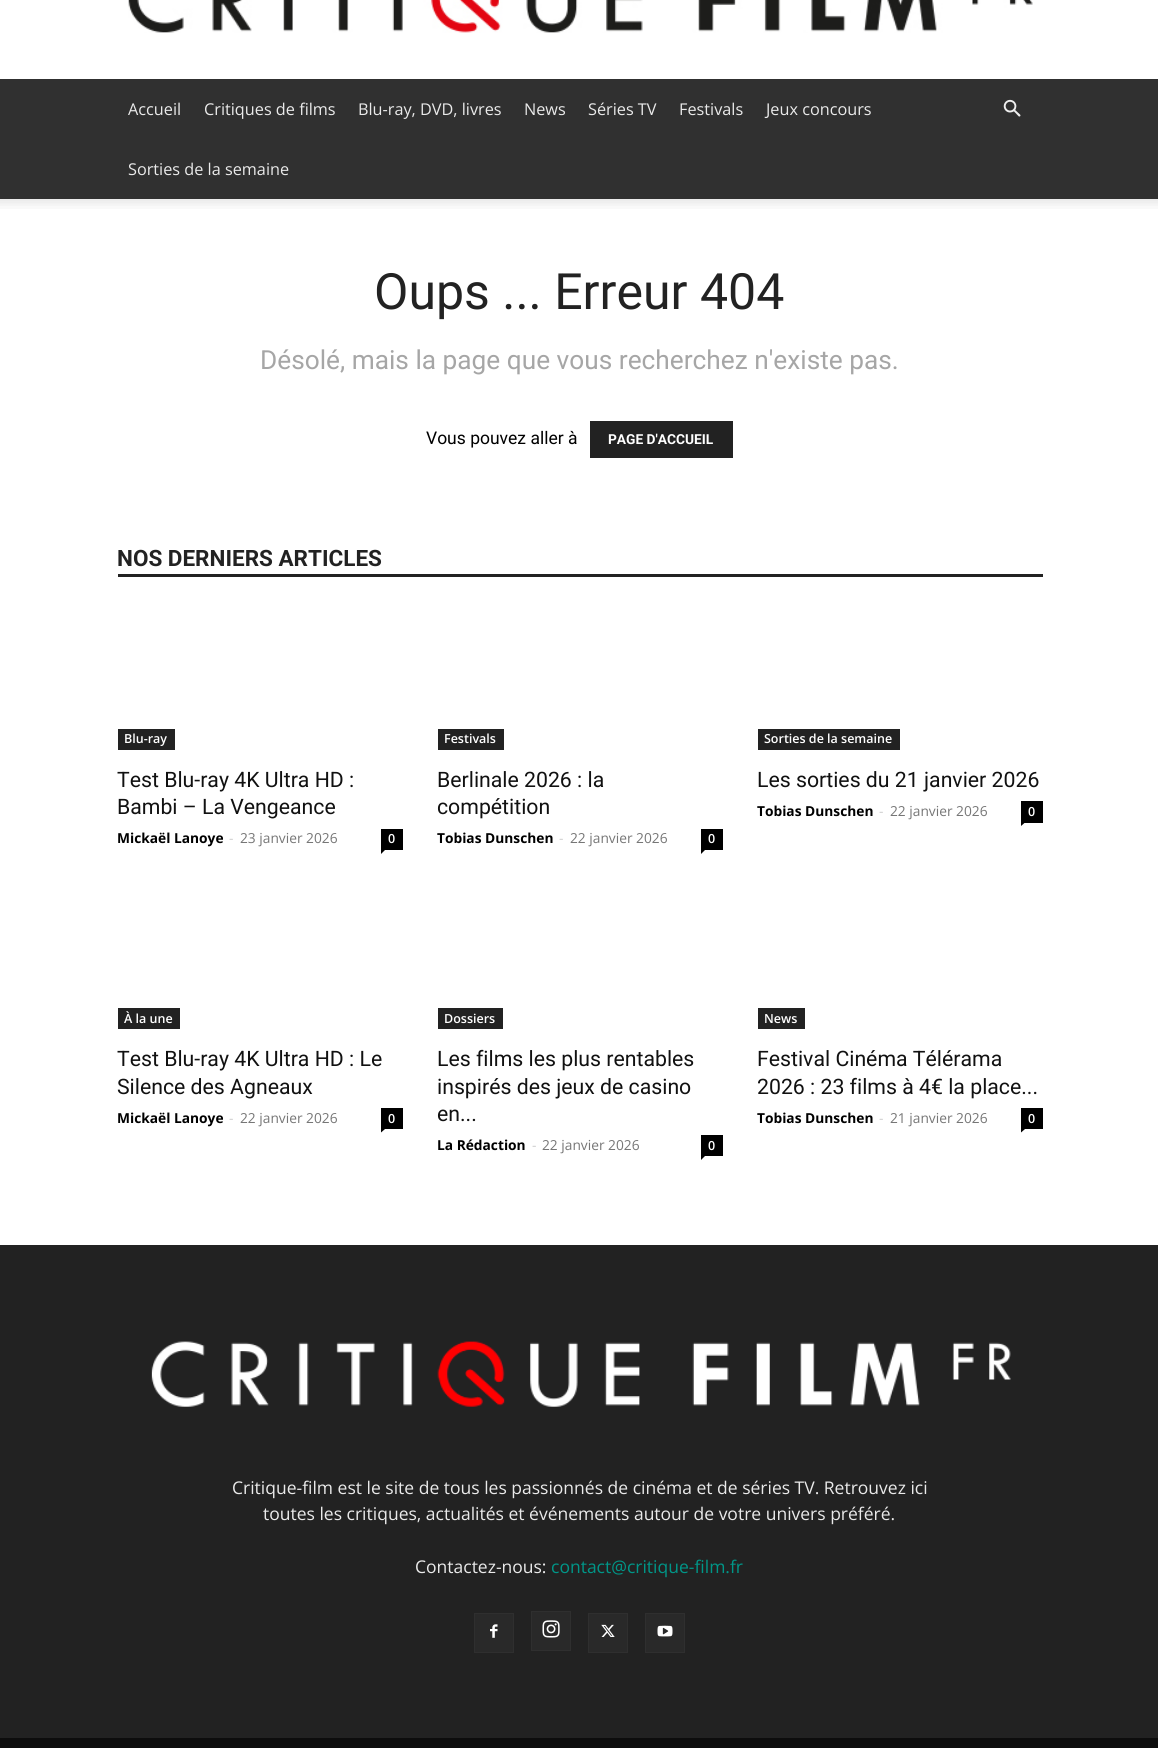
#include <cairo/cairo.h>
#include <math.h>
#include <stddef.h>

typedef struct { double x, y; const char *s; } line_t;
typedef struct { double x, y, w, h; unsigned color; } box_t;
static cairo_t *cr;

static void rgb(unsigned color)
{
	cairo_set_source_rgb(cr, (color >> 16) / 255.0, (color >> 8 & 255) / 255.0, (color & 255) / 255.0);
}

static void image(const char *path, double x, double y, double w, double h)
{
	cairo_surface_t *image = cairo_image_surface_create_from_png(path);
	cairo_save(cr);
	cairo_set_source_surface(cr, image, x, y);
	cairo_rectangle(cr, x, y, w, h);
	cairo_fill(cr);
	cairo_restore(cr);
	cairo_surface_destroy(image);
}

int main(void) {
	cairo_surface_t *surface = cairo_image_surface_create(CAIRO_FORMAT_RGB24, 1158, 1748);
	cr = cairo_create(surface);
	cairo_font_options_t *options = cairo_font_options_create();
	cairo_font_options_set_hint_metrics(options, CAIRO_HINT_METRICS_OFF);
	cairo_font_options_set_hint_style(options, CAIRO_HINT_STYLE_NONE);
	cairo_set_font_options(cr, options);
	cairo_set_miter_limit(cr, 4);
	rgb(0xffffff);
	cairo_paint(cr);
	image("img/1.png", 128, 0, 905, 33);
	rgb(0x303030);
	cairo_rectangle(cr, 0, 79, 1158, 120);
	cairo_fill(cr);
	image("img/2.png", 1003, 99, 18, 18);
	image("img/3.png", 0, 199, 1158, 10);
	{
		static const box_t items[] = {
			{590, 421, 143, 37, 0x222222},
			{118, 574, 925, 3, 0x222222},
			{118, 729, 57, 21, 0x222222},
			{381, 829, 22, 21, 0x000000},
		};
		for (size_t i = 0; i < sizeof items / sizeof *items; i++) {
			rgb(items[i].color);
			cairo_rectangle(cr, items[i].x, items[i].y, items[i].w, items[i].h);
			cairo_fill(cr);
		}
	}
	cairo_new_path(cr);
	cairo_move_to(cr, 381, 850);
	cairo_line_to(cr, 385, 850);
	cairo_line_to(cr, 381, 854);
	cairo_close_path(cr);
	cairo_fill(cr);
	rgb(0x222222);
	cairo_rectangle(cr, 438, 729, 66, 21);
	cairo_fill(cr);
	rgb(0x000000);
	cairo_rectangle(cr, 701, 829, 22, 21);
	cairo_fill(cr);
	cairo_new_path(cr);
	cairo_move_to(cr, 701, 850);
	cairo_line_to(cr, 705, 850);
	cairo_line_to(cr, 701, 854);
	cairo_close_path(cr);
	cairo_fill(cr);
	rgb(0x222222);
	cairo_rectangle(cr, 758, 729, 142, 21);
	cairo_fill(cr);
	rgb(0x000000);
	cairo_rectangle(cr, 1021, 801, 22, 22);
	cairo_fill(cr);
	cairo_new_path(cr);
	cairo_move_to(cr, 1021, 822.5);
	cairo_line_to(cr, 1025, 822.5);
	cairo_line_to(cr, 1021, 826);
	cairo_close_path(cr);
	cairo_fill(cr);
	rgb(0x222222);
	cairo_rectangle(cr, 118, 1008, 62, 21);
	cairo_fill(cr);
	rgb(0x000000);
	cairo_rectangle(cr, 381, 1108, 22, 21);
	cairo_fill(cr);
	cairo_new_path(cr);
	cairo_move_to(cr, 381, 1129);
	cairo_line_to(cr, 385, 1129);
	cairo_line_to(cr, 381, 1132.5);
	cairo_close_path(cr);
	cairo_fill(cr);
	rgb(0x222222);
	cairo_rectangle(cr, 438, 1008, 65, 21);
	cairo_fill(cr);
	rgb(0x000000);
	cairo_rectangle(cr, 701, 1135, 22, 21);
	cairo_fill(cr);
	cairo_new_path(cr);
	cairo_move_to(cr, 701, 1156);
	cairo_line_to(cr, 705, 1156);
	cairo_line_to(cr, 701, 1160);
	cairo_close_path(cr);
	cairo_fill(cr);
	rgb(0x222222);
	cairo_rectangle(cr, 758, 1008, 47, 21);
	cairo_fill(cr);
	rgb(0x000000);
	cairo_rectangle(cr, 1021, 1108, 22, 21);
	cairo_fill(cr);
	cairo_new_path(cr);
	cairo_move_to(cr, 1021, 1129);
	cairo_line_to(cr, 1025, 1129);
	cairo_line_to(cr, 1021, 1132.5);
	cairo_close_path(cr);
	cairo_fill(cr);
	rgb(0x222222);
	cairo_rectangle(cr, 0, 1245, 1158, 493);
	cairo_fill(cr);
	image("img/4.png", 151, 1341, 860, 66);
	rgb(0x292929);
	cairo_rectangle(cr, 475, 1614, 38, 38);
	cairo_fill(cr);
	image("img/5.png", 490, 1624, 8, 14);
	cairo_rectangle(cr, 474.5, 1613.5, 39, 39);
	rgb(0x2f2f2f);
	cairo_set_line_width(cr, 1);
	cairo_stroke(cr);
	rgb(0x292929);
	cairo_rectangle(cr, 532, 1612, 38, 38);
	cairo_fill(cr);
	image("img/6.png", 542, 1620, 18, 18);
	cairo_rectangle(cr, 531.5, 1611.5, 39, 39);
	rgb(0x2f2f2f);
	cairo_stroke(cr);
	rgb(0x292929);
	cairo_rectangle(cr, 589, 1614, 38, 38);
	cairo_fill(cr);
	image("img/7.png", 601, 1624, 14, 13);
	cairo_rectangle(cr, 588.5, 1613.5, 39, 39);
	rgb(0x2f2f2f);
	cairo_stroke(cr);
	rgb(0x292929);
	cairo_rectangle(cr, 646, 1614, 38, 38);
	cairo_fill(cr);
	image("img/8.png", 657, 1625, 16, 12);
	cairo_rectangle(cr, 645.5, 1613.5, 39, 39);
	rgb(0x2f2f2f);
	cairo_stroke(cr);
	rgb(0x0d0d0d);
	cairo_rectangle(cr, 0, 1738, 1158, 10);
	cairo_fill(cr);
	cairo_select_font_face(cr, "Open Sans", CAIRO_FONT_SLANT_NORMAL, CAIRO_FONT_WEIGHT_NORMAL);
	cairo_set_font_size(cr, 16.25);
	rgb(0xeaeaea);
	{
		static const line_t items[] = {
			{128, 115, "Accueil"},
			{204, 115, "Critiques de films"},
			{358, 115, "Blu-ray, DVD, livres"},
			{524, 115, "News"},
			{588, 115, "Séries TV"},
			{679, 115, "Festivals"},
			{766, 115, "Jeux concours"},
			{128, 175, "Sorties de la semaine"},
		};
		for (size_t i = 0; i < sizeof items / sizeof *items; i++) {
			cairo_move_to(cr, items[i].x, items[i].y);
			cairo_show_text(cr, items[i].s);
		}
	}
	cairo_select_font_face(cr, "Roboto", CAIRO_FONT_SLANT_NORMAL, CAIRO_FONT_WEIGHT_NORMAL);
	cairo_set_font_size(cr, 50);
	rgb(0x222222);
	cairo_move_to(cr, 374, 309);
	cairo_show_text(cr, "Oups ... Erreur 404");
	cairo_set_font_size(cr, 26.25);
	rgb(0xa6a6a6);
	cairo_move_to(cr, 260, 369);
	cairo_show_text(cr, "Désolé, mais la page que vous recherchez n'existe pas.");
	cairo_set_font_size(cr, 17.5);
	rgb(0x000000);
	cairo_move_to(cr, 426, 444);
	cairo_show_text(cr, "Vous pouvez aller à");
	cairo_select_font_face(cr, "Roboto", CAIRO_FONT_SLANT_NORMAL, CAIRO_FONT_WEIGHT_BOLD);
	cairo_set_font_size(cr, 13.75);
	rgb(0xffffff);
	cairo_move_to(cr, 608, 444);
	cairo_show_text(cr, "PAGE D'ACCUEIL");
	cairo_set_font_size(cr, 22.5);
	rgb(0x222222);
	cairo_move_to(cr, 117, 566);
	cairo_show_text(cr, "NOS DERNIERS ARTICLES");
	cairo_select_font_face(cr, "Open Sans SemiBold", CAIRO_FONT_SLANT_NORMAL, CAIRO_FONT_WEIGHT_NORMAL);
	cairo_set_font_size(cr, 12.5);
	rgb(0xffffff);
	cairo_move_to(cr, 124, 743);
	cairo_show_text(cr, "Blu-ray");
	cairo_select_font_face(cr, "Roboto", CAIRO_FONT_SLANT_NORMAL, CAIRO_FONT_WEIGHT_NORMAL);
	cairo_set_font_size(cr, 21.25);
	rgb(0x111111);
	cairo_move_to(cr, 117, 787);
	cairo_show_text(cr, "Test Blu-ray 4K Ultra HD :");
	cairo_move_to(cr, 117, 814);
	cairo_show_text(cr, "Bambi – La Vengeance");
	cairo_select_font_face(cr, "Open Sans", CAIRO_FONT_SLANT_NORMAL, CAIRO_FONT_WEIGHT_BOLD);
	cairo_set_font_size(cr, 13.75);
	rgb(0x000000);
	cairo_move_to(cr, 117, 843);
	cairo_show_text(cr, "Mickaël Lanoye");
	cairo_select_font_face(cr, "Open Sans", CAIRO_FONT_SLANT_NORMAL, CAIRO_FONT_WEIGHT_NORMAL);
	rgb(0xcccccc);
	cairo_move_to(cr, 229, 843);
	cairo_show_text(cr, "-");
	rgb(0x767676);
	cairo_move_to(cr, 240, 843);
	cairo_show_text(cr, "23 janvier 2026");
	cairo_select_font_face(cr, "Open Sans SemiBold", CAIRO_FONT_SLANT_NORMAL, CAIRO_FONT_WEIGHT_NORMAL);
	cairo_set_font_size(cr, 12.5);
	rgb(0xffffff);
	cairo_move_to(cr, 388, 843);
	cairo_show_text(cr, "0");
	cairo_move_to(cr, 444, 743);
	cairo_show_text(cr, "Festivals");
	cairo_select_font_face(cr, "Roboto", CAIRO_FONT_SLANT_NORMAL, CAIRO_FONT_WEIGHT_NORMAL);
	cairo_set_font_size(cr, 21.25);
	rgb(0x111111);
	cairo_move_to(cr, 437, 787);
	cairo_show_text(cr, "Berlinale 2026 : la");
	cairo_move_to(cr, 437, 814);
	cairo_show_text(cr, "compétition");
	cairo_select_font_face(cr, "Open Sans", CAIRO_FONT_SLANT_NORMAL, CAIRO_FONT_WEIGHT_BOLD);
	cairo_set_font_size(cr, 13.75);
	rgb(0x000000);
	cairo_move_to(cr, 437, 843);
	cairo_show_text(cr, "Tobias Dunschen");
	cairo_select_font_face(cr, "Open Sans", CAIRO_FONT_SLANT_NORMAL, CAIRO_FONT_WEIGHT_NORMAL);
	rgb(0xcccccc);
	cairo_move_to(cr, 559, 843);
	cairo_show_text(cr, "-");
	rgb(0x767676);
	cairo_move_to(cr, 570, 843);
	cairo_show_text(cr, "22 janvier 2026");
	cairo_select_font_face(cr, "Open Sans SemiBold", CAIRO_FONT_SLANT_NORMAL, CAIRO_FONT_WEIGHT_NORMAL);
	cairo_set_font_size(cr, 12.5);
	rgb(0xffffff);
	cairo_move_to(cr, 708, 843);
	cairo_show_text(cr, "0");
	cairo_move_to(cr, 764, 743);
	cairo_show_text(cr, "Sorties de la semaine");
	cairo_select_font_face(cr, "Roboto", CAIRO_FONT_SLANT_NORMAL, CAIRO_FONT_WEIGHT_NORMAL);
	cairo_set_font_size(cr, 21.25);
	rgb(0x111111);
	cairo_move_to(cr, 757, 787);
	cairo_show_text(cr, "Les sorties du 21 janvier 2026");
	cairo_select_font_face(cr, "Open Sans", CAIRO_FONT_SLANT_NORMAL, CAIRO_FONT_WEIGHT_BOLD);
	cairo_set_font_size(cr, 13.75);
	rgb(0x000000);
	cairo_move_to(cr, 757, 816);
	cairo_show_text(cr, "Tobias Dunschen");
	cairo_select_font_face(cr, "Open Sans", CAIRO_FONT_SLANT_NORMAL, CAIRO_FONT_WEIGHT_NORMAL);
	rgb(0xcccccc);
	cairo_move_to(cr, 879, 816);
	cairo_show_text(cr, "-");
	rgb(0x767676);
	cairo_move_to(cr, 890, 816);
	cairo_show_text(cr, "22 janvier 2026");
	cairo_select_font_face(cr, "Open Sans SemiBold", CAIRO_FONT_SLANT_NORMAL, CAIRO_FONT_WEIGHT_NORMAL);
	cairo_set_font_size(cr, 12.5);
	rgb(0xffffff);
	cairo_move_to(cr, 1028, 816);
	cairo_show_text(cr, "0");
	cairo_move_to(cr, 124, 1023);
	cairo_show_text(cr, "À la une");
	cairo_select_font_face(cr, "Roboto", CAIRO_FONT_SLANT_NORMAL, CAIRO_FONT_WEIGHT_NORMAL);
	cairo_set_font_size(cr, 21.25);
	rgb(0x111111);
	cairo_move_to(cr, 117, 1066);
	cairo_show_text(cr, "Test Blu-ray 4K Ultra HD : Le");
	cairo_move_to(cr, 117, 1094);
	cairo_show_text(cr, "Silence des Agneaux");
	cairo_select_font_face(cr, "Open Sans", CAIRO_FONT_SLANT_NORMAL, CAIRO_FONT_WEIGHT_BOLD);
	cairo_set_font_size(cr, 13.75);
	rgb(0x000000);
	cairo_move_to(cr, 117, 1123);
	cairo_show_text(cr, "Mickaël Lanoye");
	cairo_select_font_face(cr, "Open Sans", CAIRO_FONT_SLANT_NORMAL, CAIRO_FONT_WEIGHT_NORMAL);
	rgb(0xcccccc);
	cairo_move_to(cr, 229, 1123);
	cairo_show_text(cr, "-");
	rgb(0x767676);
	cairo_move_to(cr, 240, 1123);
	cairo_show_text(cr, "22 janvier 2026");
	cairo_select_font_face(cr, "Open Sans SemiBold", CAIRO_FONT_SLANT_NORMAL, CAIRO_FONT_WEIGHT_NORMAL);
	cairo_set_font_size(cr, 12.5);
	rgb(0xffffff);
	cairo_move_to(cr, 388, 1123);
	cairo_show_text(cr, "0");
	cairo_move_to(cr, 444, 1023);
	cairo_show_text(cr, "Dossiers");
	cairo_select_font_face(cr, "Roboto", CAIRO_FONT_SLANT_NORMAL, CAIRO_FONT_WEIGHT_NORMAL);
	cairo_set_font_size(cr, 21.25);
	rgb(0x111111);
	{
		static const line_t items[] = {
			{437, 1066, "Les films les plus rentables"},
			{437, 1094, "inspirés des jeux de casino"},
			{437, 1121, "en..."},
		};
		for (size_t i = 0; i < sizeof items / sizeof *items; i++) {
			cairo_move_to(cr, items[i].x, items[i].y);
			cairo_show_text(cr, items[i].s);
		}
	}
	cairo_select_font_face(cr, "Open Sans", CAIRO_FONT_SLANT_NORMAL, CAIRO_FONT_WEIGHT_BOLD);
	cairo_set_font_size(cr, 13.75);
	rgb(0x000000);
	cairo_move_to(cr, 437, 1150);
	cairo_show_text(cr, "La Rédaction");
	cairo_select_font_face(cr, "Open Sans", CAIRO_FONT_SLANT_NORMAL, CAIRO_FONT_WEIGHT_NORMAL);
	rgb(0xcccccc);
	cairo_move_to(cr, 532, 1150);
	cairo_show_text(cr, "-");
	rgb(0x767676);
	cairo_move_to(cr, 542, 1150);
	cairo_show_text(cr, "22 janvier 2026");
	cairo_select_font_face(cr, "Open Sans SemiBold", CAIRO_FONT_SLANT_NORMAL, CAIRO_FONT_WEIGHT_NORMAL);
	cairo_set_font_size(cr, 12.5);
	rgb(0xffffff);
	cairo_move_to(cr, 708, 1150);
	cairo_show_text(cr, "0");
	cairo_move_to(cr, 764, 1023);
	cairo_show_text(cr, "News");
	cairo_select_font_face(cr, "Roboto", CAIRO_FONT_SLANT_NORMAL, CAIRO_FONT_WEIGHT_NORMAL);
	cairo_set_font_size(cr, 21.25);
	rgb(0x111111);
	cairo_move_to(cr, 757, 1066);
	cairo_show_text(cr, "Festival Cinéma Télérama");
	cairo_move_to(cr, 757, 1094);
	cairo_show_text(cr, "2026 : 23 films à 4€ la place...");
	cairo_select_font_face(cr, "Open Sans", CAIRO_FONT_SLANT_NORMAL, CAIRO_FONT_WEIGHT_BOLD);
	cairo_set_font_size(cr, 13.75);
	rgb(0x000000);
	cairo_move_to(cr, 757, 1123);
	cairo_show_text(cr, "Tobias Dunschen");
	cairo_select_font_face(cr, "Open Sans", CAIRO_FONT_SLANT_NORMAL, CAIRO_FONT_WEIGHT_NORMAL);
	rgb(0xcccccc);
	cairo_move_to(cr, 879, 1123);
	cairo_show_text(cr, "-");
	rgb(0x767676);
	cairo_move_to(cr, 890, 1123);
	cairo_show_text(cr, "21 janvier 2026");
	cairo_select_font_face(cr, "Open Sans SemiBold", CAIRO_FONT_SLANT_NORMAL, CAIRO_FONT_WEIGHT_NORMAL);
	cairo_set_font_size(cr, 12.5);
	rgb(0xffffff);
	cairo_move_to(cr, 1028, 1123);
	cairo_show_text(cr, "0");
	cairo_select_font_face(cr, "Open Sans", CAIRO_FONT_SLANT_NORMAL, CAIRO_FONT_WEIGHT_NORMAL);
	cairo_set_font_size(cr, 17.5);
	rgb(0xeaeaea);
	{
		static const line_t items[] = {
			{232, 1494, "Critique-film est le site de tous les passionnés de cinéma et de séries TV. Retrouvez ici"},
			{263, 1520, "toutes les critiques, actualités et événements autour de votre univers préféré."},
			{415, 1573, "Contactez-nous:"},
		};
		for (size_t i = 0; i < sizeof items / sizeof *items; i++) {
			cairo_move_to(cr, items[i].x, items[i].y);
			cairo_show_text(cr, items[i].s);
		}
	}
	rgb(0x009688);
	cairo_move_to(cr, 551, 1573);
	cairo_show_text(cr, "contact@critique-film.fr");
	cairo_surface_write_to_png(surface, "page.png");
	cairo_font_options_destroy(options);
	cairo_destroy(cr);
	cairo_surface_destroy(surface);
	return 0;
}
